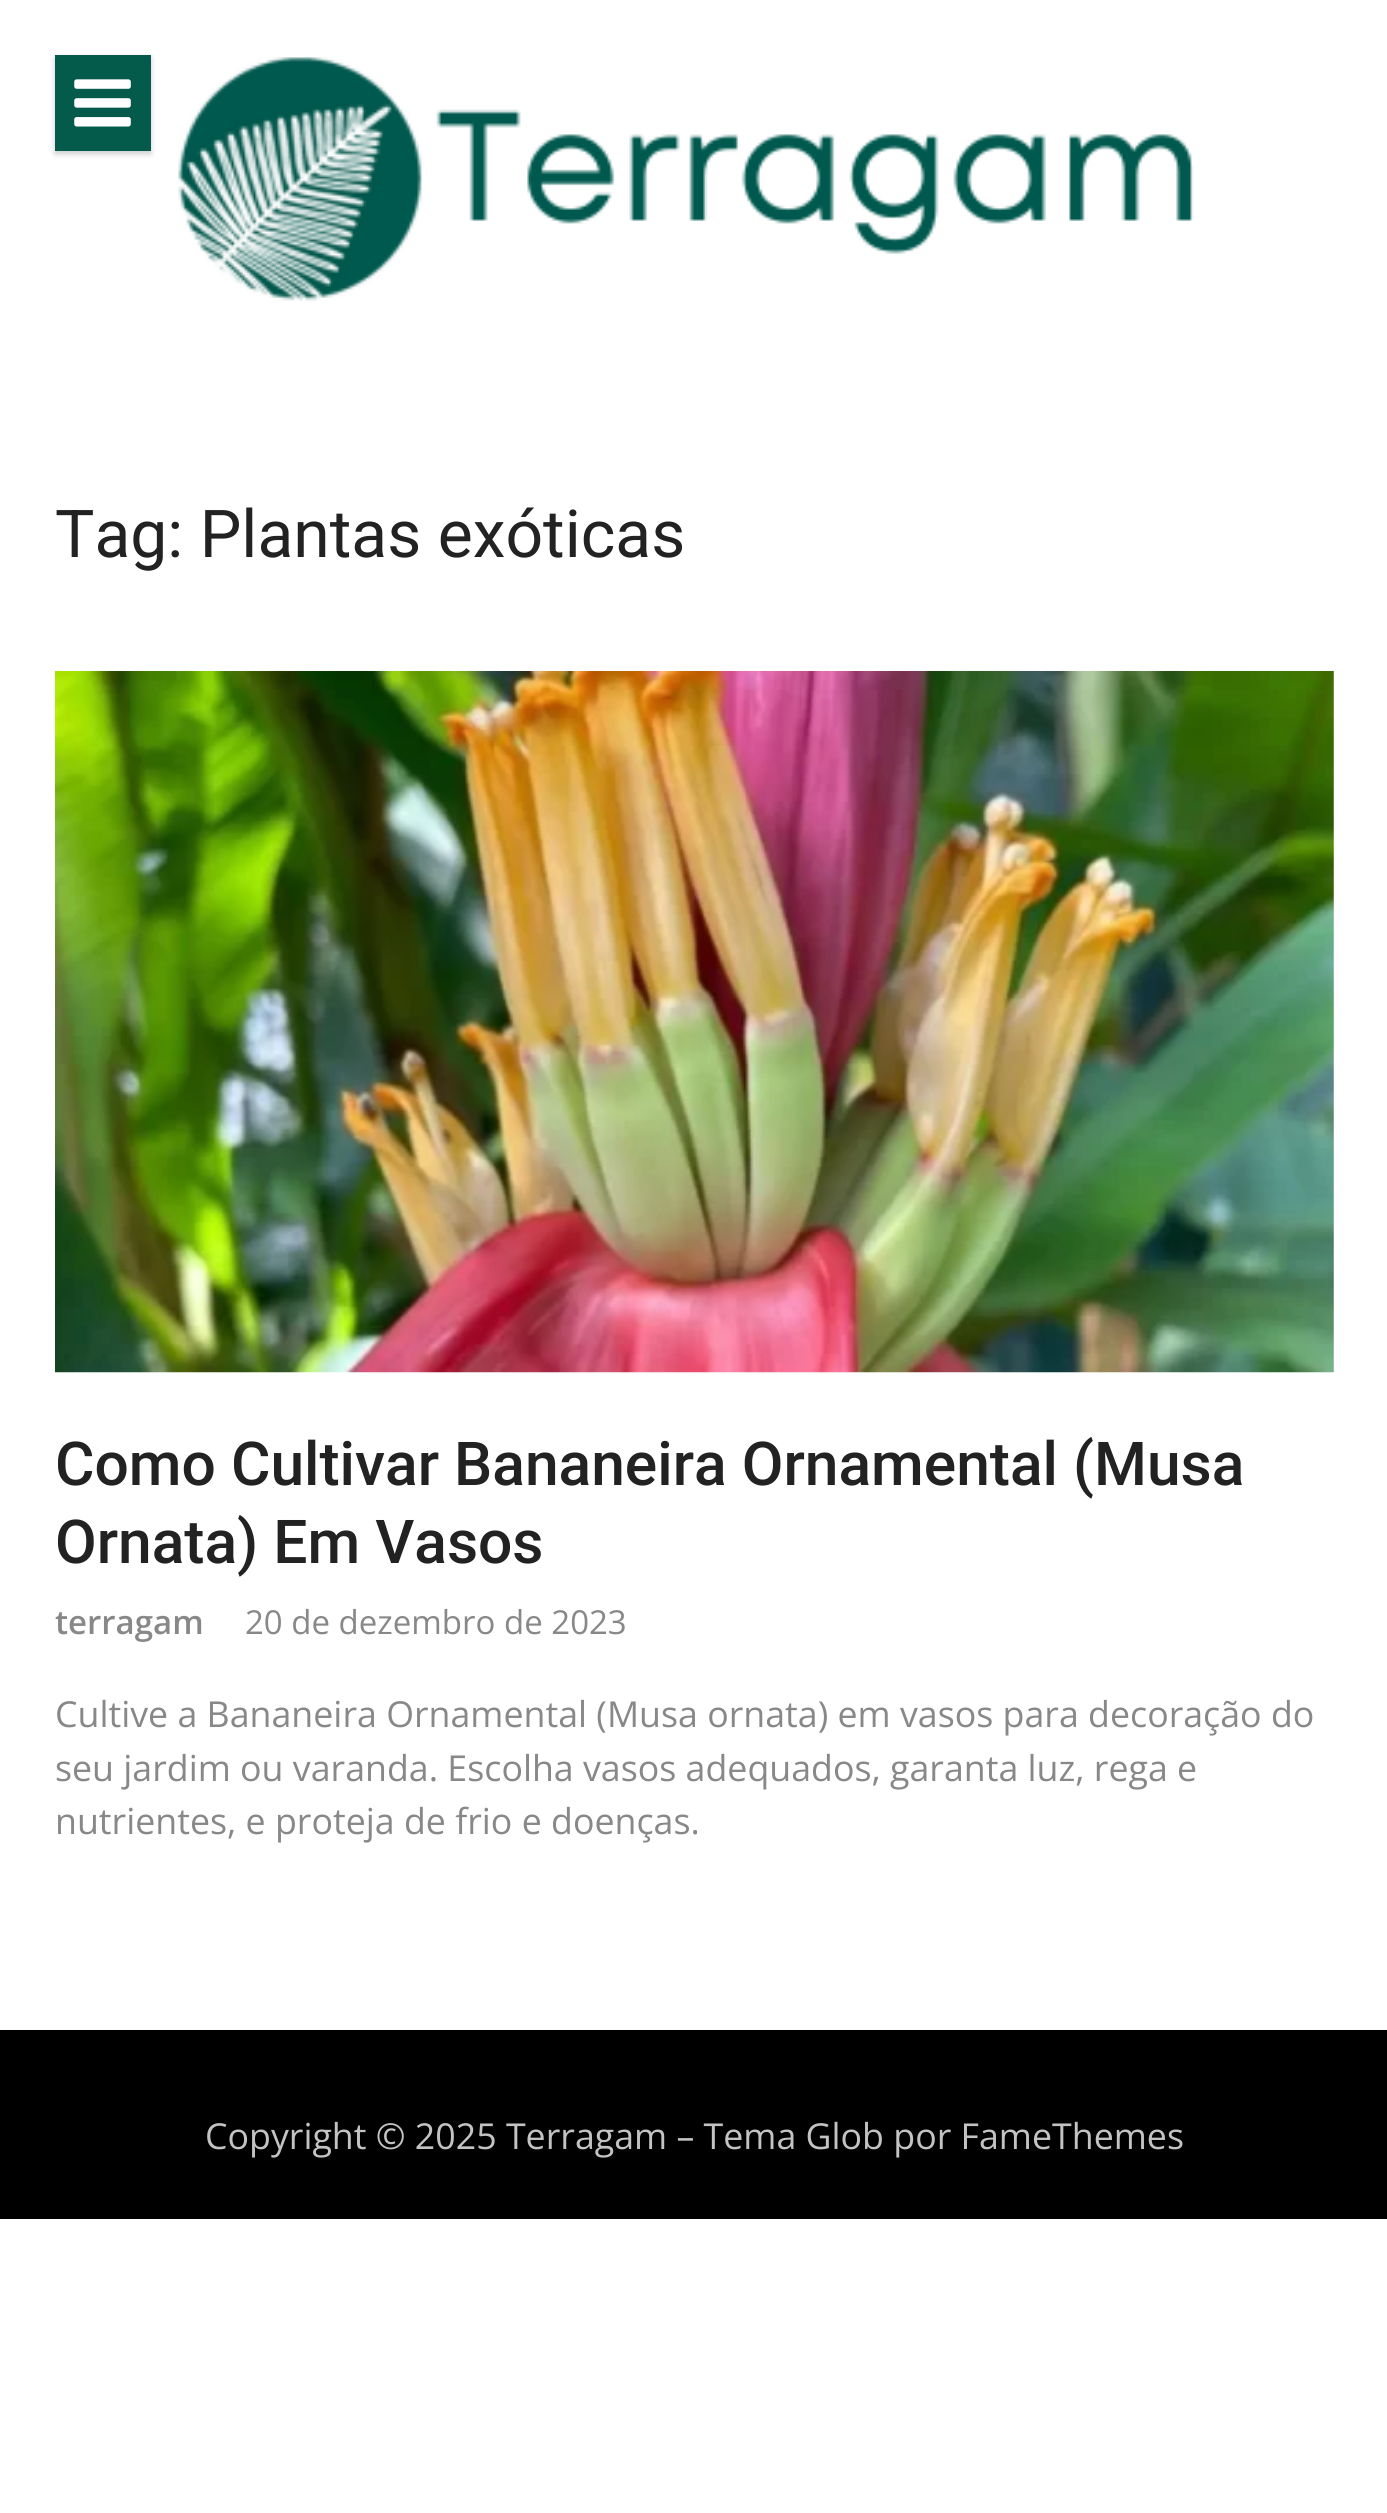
#include <cairo/cairo.h>
#include <math.h>
#include <stddef.h>

typedef struct { double x, y; const char *s; } line_t;
static cairo_t *cr;

static void rgb(unsigned color)
{
	cairo_set_source_rgb(cr, (color >> 16) / 255.0, (color >> 8 & 255) / 255.0, (color & 255) / 255.0);
}

static void rrect(double x, double y, double w, double h, double r)
{
	cairo_new_sub_path(cr);
	cairo_arc(cr, x + w - r, y + h - r, r, 0, M_PI / 2);
	cairo_arc(cr, x + r, y + h - r, r, M_PI / 2, M_PI);
	cairo_arc(cr, x + r, y + r, r, M_PI, 1.5 * M_PI);
	cairo_arc(cr, x + w - r, y + r, r, 1.5 * M_PI, 2 * M_PI);
	cairo_close_path(cr);
}

static void soft_shadow(double x, double y, double w, double h, double r, double blur, double alpha)
{
	cairo_push_group_with_content(cr, CAIRO_CONTENT_ALPHA);
	cairo_set_operator(cr, CAIRO_OPERATOR_SOURCE);
	for (int i = 15; i >= -15 && fmin(w, h) + blur * i / 3 > 0; i -= 2) {
		double e = blur * i / 6;
		cairo_set_source_rgba(cr, 0, 0, 0, alpha * erfc((i - 1) / 8.5) / 2);
		rrect(x - e, y - e, w + 2 * e, h + 2 * e, fmax(0, fmin(r + e + blur * .6, fmin(w, h) / 2 + e)));
		cairo_fill(cr);
	}
	cairo_pattern_t *soft = cairo_pop_group(cr);
	cairo_mask(cr, soft);
	cairo_pattern_destroy(soft);
}

static void image(const char *path, double x, double y, double w, double h)
{
	cairo_surface_t *image = cairo_image_surface_create_from_png(path);
	cairo_save(cr);
	cairo_set_source_surface(cr, image, x, y);
	cairo_rectangle(cr, x, y, w, h);
	cairo_fill(cr);
	cairo_restore(cr);
	cairo_surface_destroy(image);
}

int main(void) {
	cairo_surface_t *surface = cairo_image_surface_create(CAIRO_FORMAT_RGB24, 1387, 2513);
	cr = cairo_create(surface);
	cairo_font_options_t *options = cairo_font_options_create();
	cairo_font_options_set_hint_metrics(options, CAIRO_HINT_METRICS_OFF);
	cairo_font_options_set_hint_style(options, CAIRO_HINT_STYLE_NONE);
	cairo_set_font_options(cr, options);
	cairo_set_miter_limit(cr, 4);
	rgb(0xffffff);
	cairo_paint(cr);
	rgb(0x000000);
	soft_shadow(55, 58, 96, 96, 0, 3, 0.2);
	rgb(0x045b4c);
	cairo_rectangle(cr, 55, 55, 96, 96);
	cairo_fill(cr);
	image("img/1.png", 74, 79, 57, 48);
	image("img/2.png", 178, 57, 1016, 244);
	image("img/3.png", 55, 671, 1279, 702);
	rgb(0x000000);
	cairo_rectangle(cr, 0, 2030, 1387, 189);
	cairo_fill(cr);
	cairo_select_font_face(cr, "Roboto", CAIRO_FONT_SLANT_NORMAL, CAIRO_FONT_WEIGHT_NORMAL);
	cairo_set_font_size(cr, 66);
	rgb(0x222222);
	cairo_move_to(cr, 55, 557);
	cairo_show_text(cr, "Tag: Plantas exóticas");
	cairo_select_font_face(cr, "Roboto Medium", CAIRO_FONT_SLANT_NORMAL, CAIRO_FONT_WEIGHT_NORMAL);
	cairo_set_font_size(cr, 60.5);
	cairo_move_to(cr, 55, 1485);
	cairo_show_text(cr, "Como Cultivar Bananeira Ornamental (Musa");
	cairo_move_to(cr, 55, 1563);
	cairo_show_text(cr, "Ornata) Em Vasos");
	cairo_select_font_face(cr, "Open Sans SemiBold", CAIRO_FONT_SLANT_NORMAL, CAIRO_FONT_WEIGHT_NORMAL);
	cairo_set_font_size(cr, 33);
	rgb(0x888888);
	cairo_move_to(cr, 55, 1634);
	cairo_show_text(cr, "terragam");
	cairo_select_font_face(cr, "Open Sans", CAIRO_FONT_SLANT_NORMAL, CAIRO_FONT_WEIGHT_NORMAL);
	cairo_move_to(cr, 245, 1634);
	cairo_show_text(cr, "20 de dezembro de 2023");
	cairo_set_font_size(cr, 35.75);
	{
		static const line_t items[] = {
			{55, 1727, "Cultive a Bananeira Ornamental (Musa ornata) em vasos para decoração do"},
			{55, 1781, "seu jardim ou varanda. Escolha vasos adequados, garanta luz, rega e"},
			{55, 1834, "nutrientes, e proteja de frio e doenças."},
		};
		for (size_t i = 0; i < sizeof items / sizeof *items; i++) {
			cairo_move_to(cr, items[i].x, items[i].y);
			cairo_show_text(cr, items[i].s);
		}
	}
	rgb(0xc3c3c3);
	cairo_move_to(cr, 205, 2149);
	cairo_show_text(cr, "Copyright © 2025 Terragam – Tema Glob por FameThemes");
	cairo_surface_write_to_png(surface, "page.png");
	cairo_font_options_destroy(options);
	cairo_destroy(cr);
	cairo_surface_destroy(surface);
	return 0;
}
